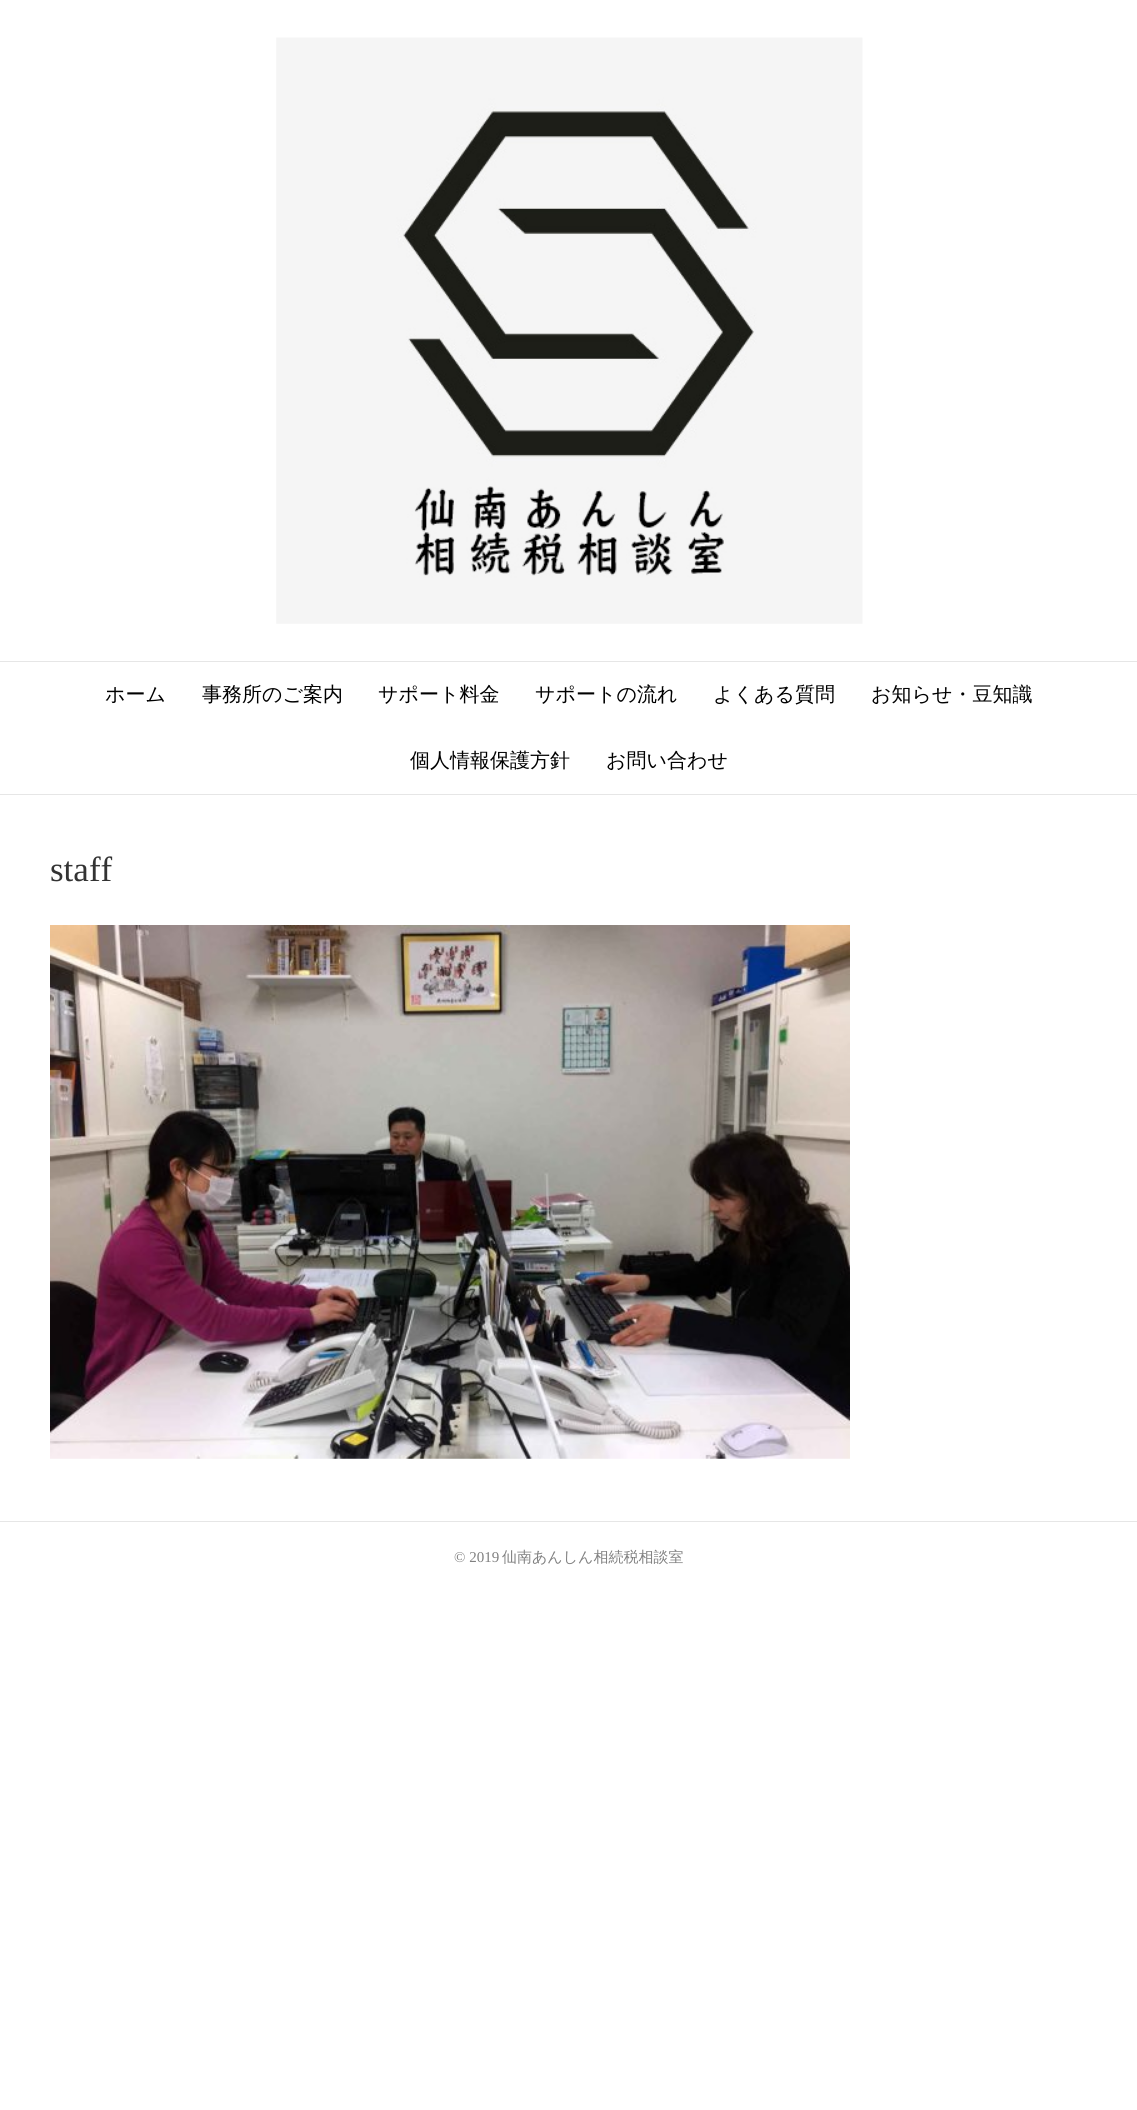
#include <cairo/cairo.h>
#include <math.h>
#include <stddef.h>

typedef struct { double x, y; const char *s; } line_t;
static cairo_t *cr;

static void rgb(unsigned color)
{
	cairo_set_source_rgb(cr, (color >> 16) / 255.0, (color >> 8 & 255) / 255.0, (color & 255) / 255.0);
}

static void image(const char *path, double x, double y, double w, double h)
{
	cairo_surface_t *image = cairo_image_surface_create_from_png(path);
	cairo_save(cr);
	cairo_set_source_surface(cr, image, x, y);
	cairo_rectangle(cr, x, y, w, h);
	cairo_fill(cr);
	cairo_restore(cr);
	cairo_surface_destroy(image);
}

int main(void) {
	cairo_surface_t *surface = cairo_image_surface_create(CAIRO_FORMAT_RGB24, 1137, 2110);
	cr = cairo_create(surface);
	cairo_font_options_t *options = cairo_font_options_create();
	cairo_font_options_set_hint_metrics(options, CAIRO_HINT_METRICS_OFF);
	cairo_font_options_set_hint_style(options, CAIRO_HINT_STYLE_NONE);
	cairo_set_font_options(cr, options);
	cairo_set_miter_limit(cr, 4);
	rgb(0xffffff);
	cairo_paint(cr);
	image("img/1.png", 276, 37, 587, 587);
	rgb(0xe6e6e6);
	cairo_rectangle(cr, 0, 661, 1137, 1);
	cairo_fill(cr);
	cairo_rectangle(cr, 0, 794, 1137, 1);
	cairo_fill(cr);
	image("img/2.png", 50, 925, 800, 534);
	cairo_rectangle(cr, 0, 1521, 1137, 1);
	cairo_fill(cr);
	cairo_select_font_face(cr, "WenQuanYi Zen Hei Medium", CAIRO_FONT_SLANT_NORMAL, CAIRO_FONT_WEIGHT_NORMAL);
	cairo_set_font_size(cr, 20);
	rgb(0x000000);
	{
		static const line_t items[] = {
			{105, 701, "ホーム"},
			{202, 701, "事務所のご案内"},
			{378, 701, "サポート料金"},
			{535, 701, "サポートの流れ"},
			{713, 701, "よくある質問"},
			{871, 701, "お知らせ・豆知識"},
			{410, 767, "個人情報保護方針"},
			{606, 767, "お問い合わせ"},
		};
		for (size_t i = 0; i < sizeof items / sizeof *items; i++) {
			cairo_move_to(cr, items[i].x, items[i].y);
			cairo_show_text(cr, items[i].s);
		}
	}
	cairo_select_font_face(cr, "Liberation Serif", CAIRO_FONT_SLANT_NORMAL, CAIRO_FONT_WEIGHT_NORMAL);
	cairo_set_font_size(cr, 35);
	rgb(0x333333);
	cairo_move_to(cr, 50, 881);
	cairo_show_text(cr, "staff");
	cairo_set_font_size(cr, 15);
	rgb(0x808080);
	cairo_move_to(cr, 454, 1562);
	cairo_show_text(cr, "© 2019");
	cairo_select_font_face(cr, "WenQuanYi Zen Hei Medium", CAIRO_FONT_SLANT_NORMAL, CAIRO_FONT_WEIGHT_NORMAL);
	cairo_move_to(cr, 502, 1562);
	cairo_show_text(cr, "仙南あんしん相続税相談室");
	cairo_surface_write_to_png(surface, "page.png");
	cairo_font_options_destroy(options);
	cairo_destroy(cr);
	cairo_surface_destroy(surface);
	return 0;
}
